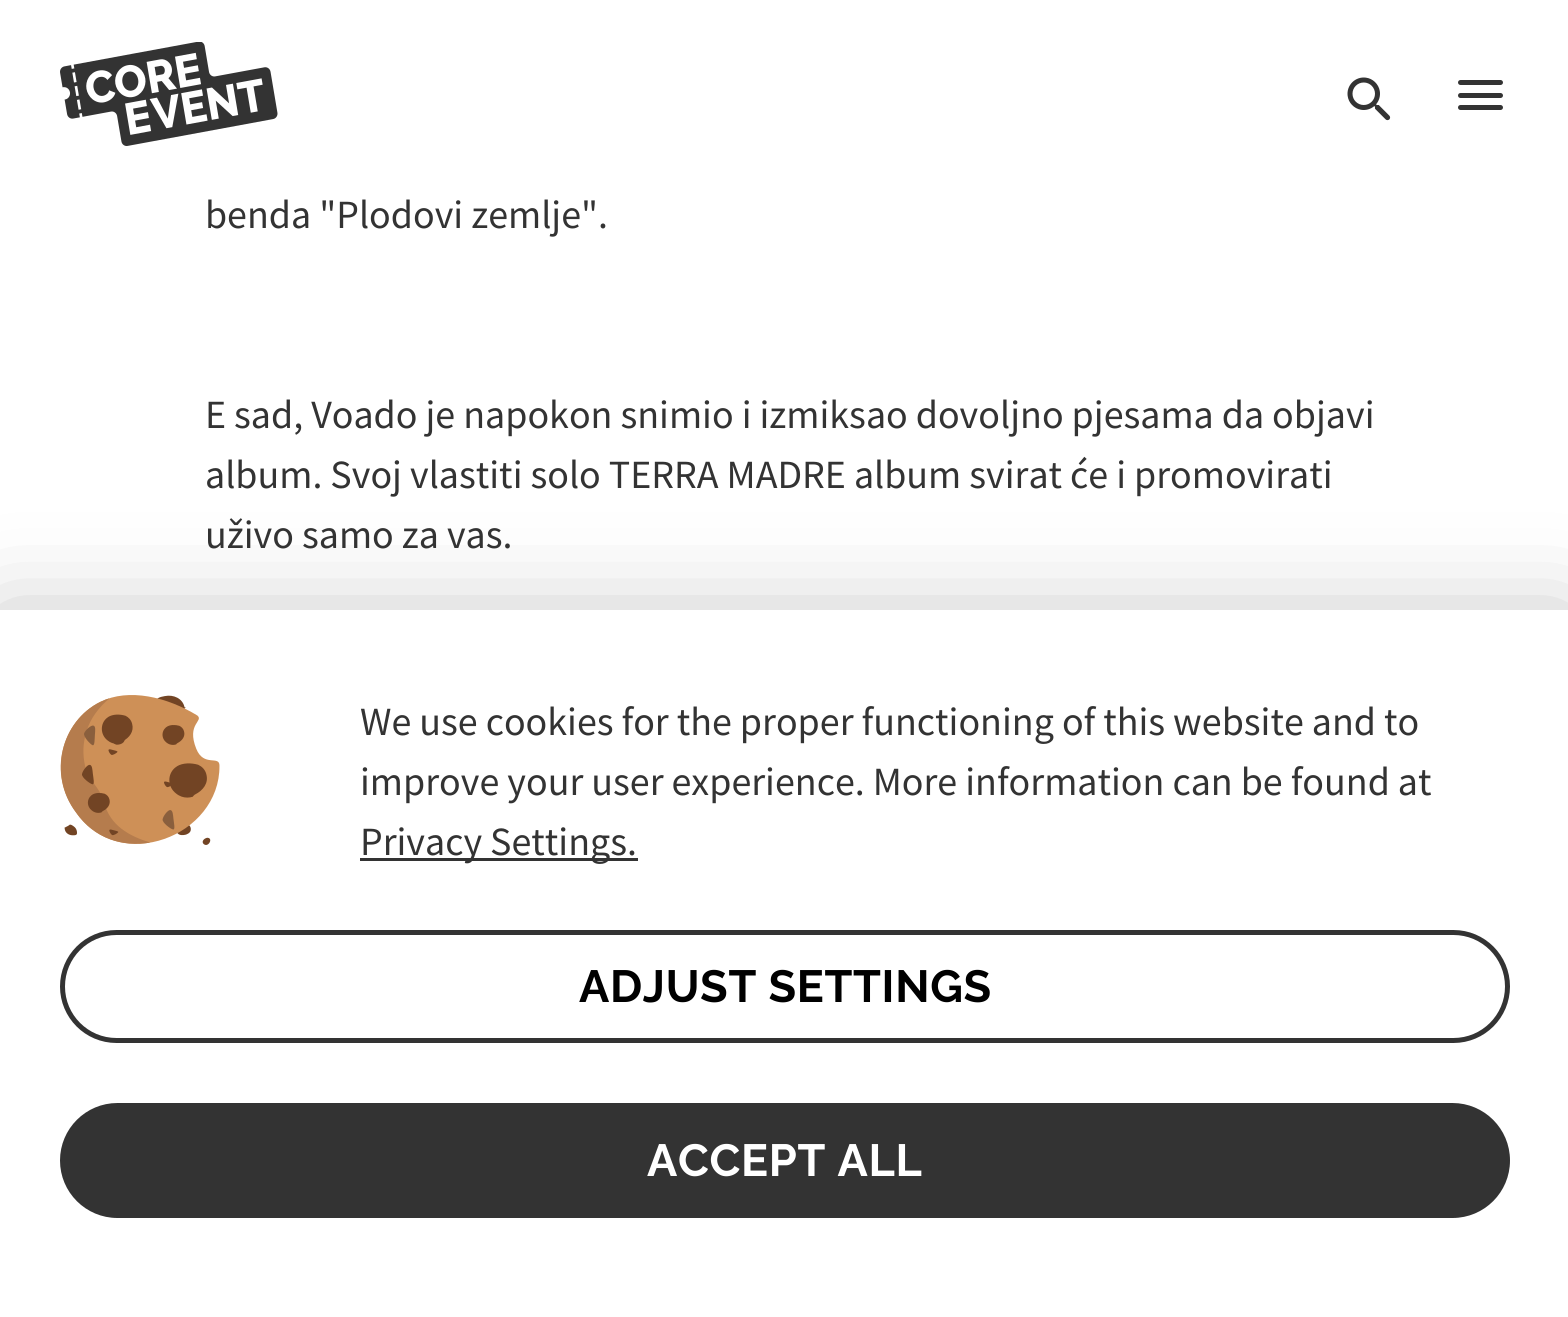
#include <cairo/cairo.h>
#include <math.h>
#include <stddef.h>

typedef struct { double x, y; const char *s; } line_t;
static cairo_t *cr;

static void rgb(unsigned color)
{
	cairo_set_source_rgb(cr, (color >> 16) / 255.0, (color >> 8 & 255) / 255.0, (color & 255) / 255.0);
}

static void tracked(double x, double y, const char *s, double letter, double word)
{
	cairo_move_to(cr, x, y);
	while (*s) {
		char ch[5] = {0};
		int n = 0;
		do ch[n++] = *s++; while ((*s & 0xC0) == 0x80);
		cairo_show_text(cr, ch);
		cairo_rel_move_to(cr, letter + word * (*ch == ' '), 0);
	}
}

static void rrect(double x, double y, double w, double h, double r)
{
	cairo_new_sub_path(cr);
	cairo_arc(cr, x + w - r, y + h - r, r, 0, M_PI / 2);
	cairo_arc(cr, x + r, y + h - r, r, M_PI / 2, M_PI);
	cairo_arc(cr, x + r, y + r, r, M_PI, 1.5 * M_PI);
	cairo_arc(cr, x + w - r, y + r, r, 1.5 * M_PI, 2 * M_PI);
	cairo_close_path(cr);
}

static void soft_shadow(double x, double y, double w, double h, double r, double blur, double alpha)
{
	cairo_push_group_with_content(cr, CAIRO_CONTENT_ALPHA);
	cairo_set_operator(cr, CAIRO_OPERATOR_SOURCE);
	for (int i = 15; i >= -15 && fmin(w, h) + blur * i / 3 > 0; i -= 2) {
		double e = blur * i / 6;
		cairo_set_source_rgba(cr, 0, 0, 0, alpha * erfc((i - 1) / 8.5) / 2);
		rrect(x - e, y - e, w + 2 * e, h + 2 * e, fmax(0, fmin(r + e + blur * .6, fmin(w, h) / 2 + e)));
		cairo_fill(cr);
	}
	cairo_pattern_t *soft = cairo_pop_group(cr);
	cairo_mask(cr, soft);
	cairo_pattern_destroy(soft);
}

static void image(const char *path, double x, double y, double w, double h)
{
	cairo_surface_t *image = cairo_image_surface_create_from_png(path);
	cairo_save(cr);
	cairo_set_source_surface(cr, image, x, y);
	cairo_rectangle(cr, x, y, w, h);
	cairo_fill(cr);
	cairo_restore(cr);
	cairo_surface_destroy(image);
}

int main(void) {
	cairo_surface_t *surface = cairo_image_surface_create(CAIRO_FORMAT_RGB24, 1568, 1317);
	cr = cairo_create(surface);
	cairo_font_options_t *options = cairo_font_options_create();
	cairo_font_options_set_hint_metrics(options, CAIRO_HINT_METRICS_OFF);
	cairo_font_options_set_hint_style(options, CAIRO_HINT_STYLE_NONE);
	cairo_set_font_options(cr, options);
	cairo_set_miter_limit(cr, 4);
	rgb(0xffffff);
	cairo_paint(cr);
	image("img/1.png", 60, 42, 218, 104);
	image("img/2.png", 1347, 77, 44, 44);
	rgb(0x333333);
	rrect(1458, 80, 45, 5, 2.5);
	cairo_fill(cr);
	rrect(1458, 93, 45, 5, 2.5);
	cairo_fill(cr);
	rrect(1458, 105, 45, 5, 2.5);
	cairo_fill(cr);
	rgb(0x333333);
	soft_shadow(0, 620, 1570, 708, 0, 50, 0.32);
	rgb(0xffffff);
	cairo_rectangle(cr, 0, 610, 1568, 707);
	cairo_fill(cr);
	image("img/3.png", 60, 695, 160, 150);
	rgb(0x333333);
	cairo_rectangle(cr, 360, 858, 278, 3);
	cairo_fill(cr);
	rrect(62.5, 932.5, 1445, 108, 54);
	cairo_set_line_width(cr, 5);
	cairo_stroke(cr);
	rrect(60, 1103, 1450, 115, 57.5);
	cairo_fill(cr);
	cairo_select_font_face(cr, "Source Sans Pro", CAIRO_FONT_SLANT_NORMAL, CAIRO_FONT_WEIGHT_NORMAL);
	cairo_set_font_size(cr, 40);
	{
		static const line_t items[] = {
			{205, 228, "benda \"Plodovi zemlje\"."},
			{205, 428, "E sad, Voado je napokon snimio i izmiksao dovoljno pjesama da objavi"},
			{205, 488, "album. Svoj vlastiti solo TERRA MADRE album svirat će i promovirati"},
			{205, 548, "uživo samo za vas."},
			{360, 735, "We use cookies for the proper functioning of this website and to"},
			{360, 795, "improve your user experience. More information can be found at"},
			{360, 855, "Privacy Settings."},
		};
		for (size_t i = 0; i < sizeof items / sizeof *items; i++) {
			cairo_move_to(cr, items[i].x, items[i].y);
			cairo_show_text(cr, items[i].s);
		}
	}
	cairo_select_font_face(cr, "Raleway", CAIRO_FONT_SLANT_NORMAL, CAIRO_FONT_WEIGHT_BOLD);
	cairo_set_font_size(cr, 45);
	rgb(0x000000);
	tracked(579, 1002, "ADJUST SETTINGS", 0.7, 0);
	rgb(0xffffff);
	tracked(647, 1176, "ACCEPT ALL", 0.7, 0);
	cairo_surface_write_to_png(surface, "page.png");
	cairo_font_options_destroy(options);
	cairo_destroy(cr);
	cairo_surface_destroy(surface);
	return 0;
}
